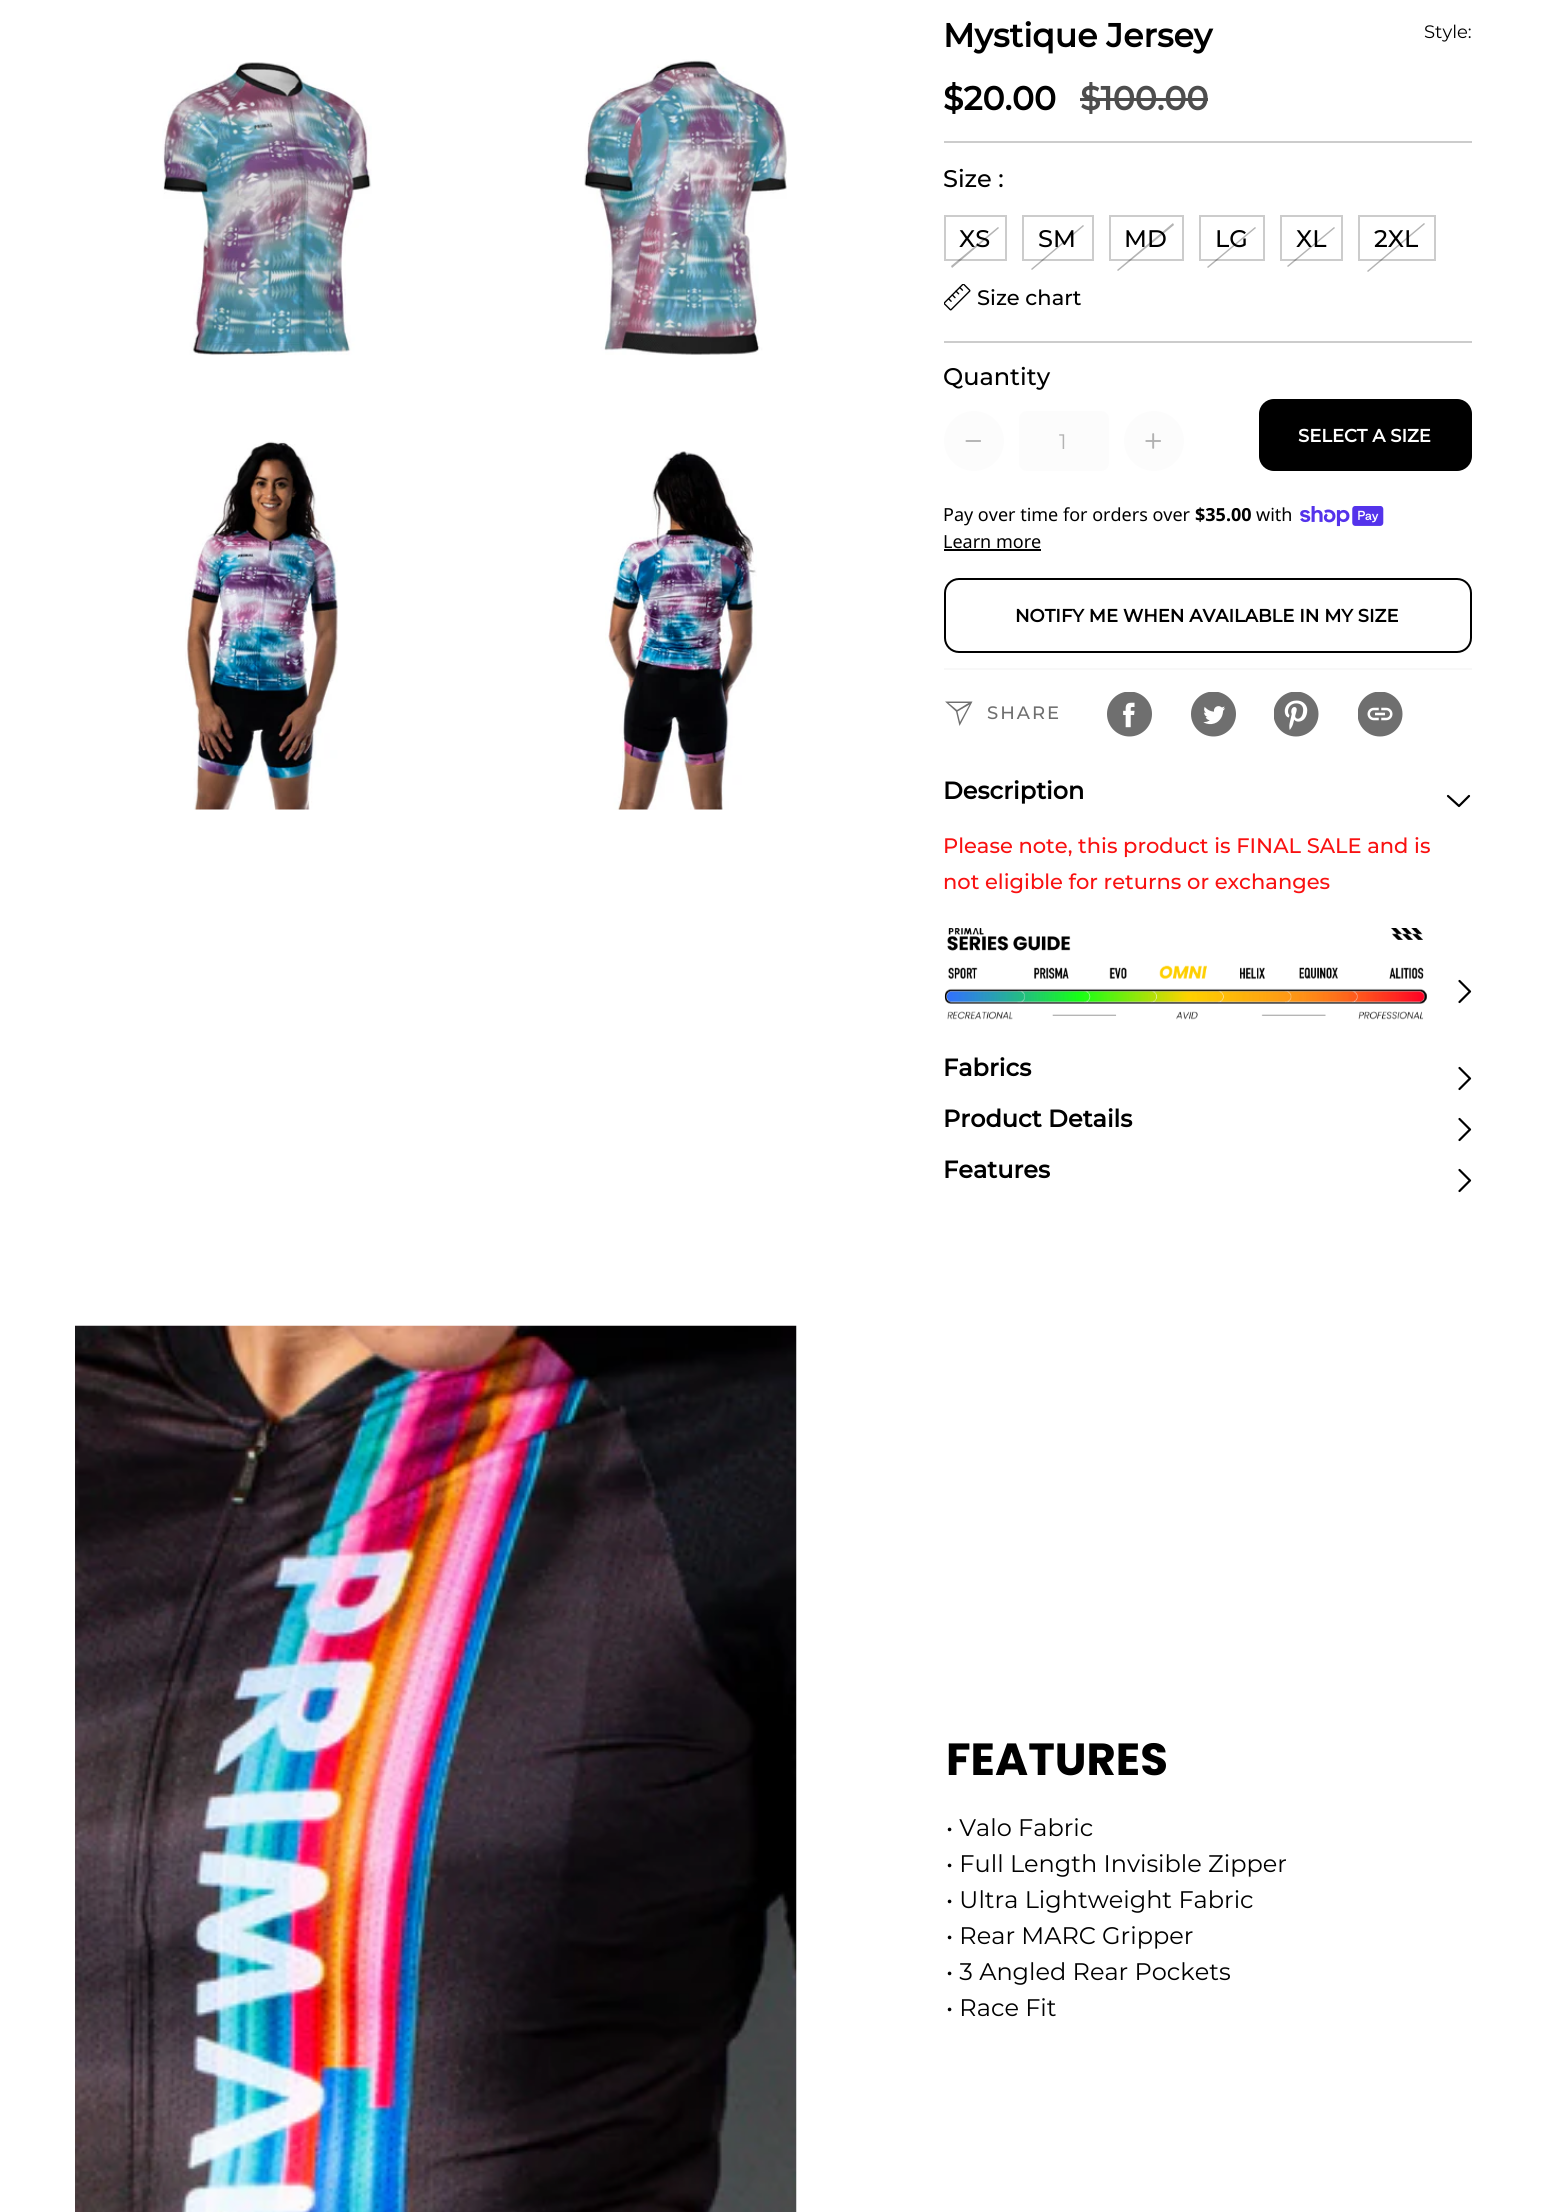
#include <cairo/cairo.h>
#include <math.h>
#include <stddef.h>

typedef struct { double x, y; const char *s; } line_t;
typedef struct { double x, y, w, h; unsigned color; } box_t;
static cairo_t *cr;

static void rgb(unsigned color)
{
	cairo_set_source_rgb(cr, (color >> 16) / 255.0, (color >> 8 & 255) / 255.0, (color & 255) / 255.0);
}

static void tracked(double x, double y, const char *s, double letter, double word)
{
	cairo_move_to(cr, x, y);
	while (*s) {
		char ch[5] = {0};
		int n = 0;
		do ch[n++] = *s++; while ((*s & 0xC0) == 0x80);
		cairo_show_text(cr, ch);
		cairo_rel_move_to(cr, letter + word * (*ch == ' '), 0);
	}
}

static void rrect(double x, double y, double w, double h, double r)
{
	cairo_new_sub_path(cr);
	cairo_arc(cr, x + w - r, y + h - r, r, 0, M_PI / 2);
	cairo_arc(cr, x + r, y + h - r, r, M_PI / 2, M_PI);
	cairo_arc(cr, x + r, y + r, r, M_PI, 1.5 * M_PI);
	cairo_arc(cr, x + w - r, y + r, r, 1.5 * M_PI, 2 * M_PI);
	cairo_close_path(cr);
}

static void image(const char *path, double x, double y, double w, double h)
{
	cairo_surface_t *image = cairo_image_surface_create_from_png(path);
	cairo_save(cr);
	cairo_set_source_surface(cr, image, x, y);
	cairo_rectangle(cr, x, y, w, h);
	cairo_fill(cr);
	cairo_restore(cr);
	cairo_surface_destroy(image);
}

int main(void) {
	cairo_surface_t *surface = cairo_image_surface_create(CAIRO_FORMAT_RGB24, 1546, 2212);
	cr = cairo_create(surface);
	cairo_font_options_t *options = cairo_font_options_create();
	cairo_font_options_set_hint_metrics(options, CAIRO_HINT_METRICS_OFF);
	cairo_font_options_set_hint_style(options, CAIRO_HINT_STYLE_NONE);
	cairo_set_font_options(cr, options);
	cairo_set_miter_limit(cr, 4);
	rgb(0xffffff);
	cairo_paint(cr);
	image("img/1.png", 162, 62, 210, 294);
	image("img/2.png", 584, 59, 203, 296);
	image("img/3.png", 185, 440, 153, 370);
	image("img/4.png", 605, 451, 152, 359);
	{
		static const box_t items[] = {
			{944, 141, 528, 2, 0xcccccc},
			{1080, 98, 128, 3, 0x4d4d4d},
			{944, 341, 528, 2, 0xcccccc},
		};
		for (size_t i = 0; i < sizeof items / sizeof *items; i++) {
			rgb(items[i].color);
			cairo_rectangle(cr, items[i].x, items[i].y, items[i].w, items[i].h);
			cairo_fill(cr);
		}
	}
	cairo_rectangle(cr, 945, 216, 61, 44);
	cairo_stroke(cr);
	cairo_rectangle(cr, 1023, 216, 70, 44);
	cairo_stroke(cr);
	cairo_rectangle(cr, 1110, 216, 73, 44);
	cairo_stroke(cr);
	cairo_rectangle(cr, 1200, 216, 64, 44);
	cairo_stroke(cr);
	cairo_rectangle(cr, 1281, 216, 61, 44);
	cairo_stroke(cr);
	cairo_rectangle(cr, 1359, 216, 76, 44);
	cairo_stroke(cr);
	image("img/5.png", 944, 284, 27, 27);
	rgb(0xfcfcfc);
	cairo_arc(cr, 974, 441, 30, 0, 2 * M_PI);
	cairo_fill(cr);
	image("img/6.png", 965, 440, 16, 2);
	rrect(1019, 411, 90, 60, 8);
	cairo_fill(cr);
	cairo_arc(cr, 1154, 441, 30, 0, 2 * M_PI);
	cairo_fill(cr);
	image("img/7.png", 1145, 433, 16, 16);
	rgb(0x000000);
	rrect(1259, 399, 213, 72, 15);
	cairo_fill(cr);
	image("img/8.png", 1300, 506, 84, 21);
	cairo_rectangle(cr, 944, 549, 97, 2);
	cairo_fill(cr);
	rrect(945, 579, 526, 73, 14);
	cairo_stroke(cr);
	rgb(0xf8f8f8);
	cairo_rectangle(cr, 944, 668, 528, 2);
	cairo_fill(cr);
	rgb(0x6f6f6f);
	cairo_new_path(cr);
	cairo_move_to(cr, 972.5, 701.5);
	cairo_line_to(cr, 959.5, 726);
	cairo_line_to(cr, 956, 711.5);
	cairo_line_to(cr, 945, 701.5);
	cairo_close_path(cr);
	cairo_move_to(cr, 968.5, 703);
	cairo_line_to(cr, 948.5, 703);
	cairo_line_to(cr, 957, 710);
	cairo_close_path(cr);
	cairo_move_to(cr, 969.5, 704.5);
	cairo_line_to(cr, 957.5, 711.5);
	cairo_line_to(cr, 960, 722);
	cairo_close_path(cr);
	cairo_fill(cr);
	image("img/9.png", 1107, 692, 45, 45);
	image("img/10.png", 1191, 692, 45, 45);
	image("img/11.png", 1274, 692, 45, 45);
	image("img/12.png", 1358, 692, 45, 45);
	cairo_new_path(cr);
	cairo_move_to(cr, 1448, 796);
	cairo_line_to(cr, 1459, 806);
	cairo_line_to(cr, 1469, 796);
	rgb(0x000000);
	cairo_set_line_width(cr, 2.2);
	cairo_set_line_cap(cr, CAIRO_LINE_CAP_ROUND);
	cairo_set_line_join(cr, CAIRO_LINE_JOIN_ROUND);
	cairo_stroke(cr);
	cairo_new_path(cr);
	cairo_move_to(cr, 1459.5, 1002);
	cairo_line_to(cr, 1470, 991.5);
	cairo_line_to(cr, 1459.5, 981);
	cairo_stroke(cr);
	image("img/13.png", 944, 928, 483, 92);
	cairo_new_path(cr);
	cairo_move_to(cr, 1459.5, 1089);
	cairo_line_to(cr, 1470, 1078.5);
	cairo_line_to(cr, 1459.5, 1068);
	cairo_stroke(cr);
	cairo_new_path(cr);
	cairo_move_to(cr, 1459.5, 1140);
	cairo_line_to(cr, 1470, 1129.5);
	cairo_line_to(cr, 1459.5, 1119);
	cairo_stroke(cr);
	cairo_new_path(cr);
	cairo_move_to(cr, 1459.5, 1191);
	cairo_line_to(cr, 1470, 1180.5);
	cairo_line_to(cr, 1459.5, 1170);
	cairo_stroke(cr);
	image("img/14.png", 75, 1325, 722, 887);
	cairo_select_font_face(cr, "Montserrat", CAIRO_FONT_SLANT_NORMAL, CAIRO_FONT_WEIGHT_BOLD);
	cairo_set_font_size(cr, 33);
	cairo_move_to(cr, 943, 47);
	cairo_show_text(cr, "Mystique Jersey");
	cairo_select_font_face(cr, "Montserrat", CAIRO_FONT_SLANT_NORMAL, CAIRO_FONT_WEIGHT_NORMAL);
	cairo_set_font_size(cr, 18);
	cairo_move_to(cr, 1424, 38);
	cairo_show_text(cr, "Style:");
	cairo_select_font_face(cr, "Montserrat", CAIRO_FONT_SLANT_NORMAL, CAIRO_FONT_WEIGHT_BOLD);
	cairo_set_font_size(cr, 33);
	cairo_move_to(cr, 943, 110);
	cairo_show_text(cr, "$20.00");
	rgb(0x4d4d4d);
	cairo_move_to(cr, 1080, 110);
	cairo_show_text(cr, "$100.00");
	cairo_select_font_face(cr, "Montserrat Medium", CAIRO_FONT_SLANT_NORMAL, CAIRO_FONT_WEIGHT_NORMAL);
	cairo_set_font_size(cr, 24);
	rgb(0x000000);
	cairo_move_to(cr, 943, 187);
	cairo_show_text(cr, "Size :");
	cairo_move_to(cr, 959, 247);
	cairo_show_text(cr, "XS");
	cairo_set_source_rgba(cr, 0, 0, 0, 0.3);
	cairo_new_path(cr);
	cairo_move_to(cr, 951, 266);
	cairo_line_to(cr, 998, 227);
	cairo_line_to(cr, 999, 228);
	cairo_line_to(cr, 952, 268);
	cairo_close_path(cr);
	cairo_fill(cr);
	rgb(0x000000);
	cairo_move_to(cr, 1038, 247);
	cairo_show_text(cr, "SM");
	cairo_set_source_rgba(cr, 0, 0, 0, 0.3);
	cairo_new_path(cr);
	cairo_move_to(cr, 1031, 269);
	cairo_line_to(cr, 1083, 225);
	cairo_line_to(cr, 1084, 226);
	cairo_line_to(cr, 1032, 270);
	cairo_close_path(cr);
	cairo_fill(cr);
	rgb(0x000000);
	cairo_move_to(cr, 1124, 247);
	cairo_show_text(cr, "MD");
	cairo_set_source_rgba(cr, 0, 0, 0, 0.3);
	cairo_new_path(cr);
	cairo_move_to(cr, 1117, 270);
	cairo_line_to(cr, 1173, 223);
	cairo_line_to(cr, 1174, 225);
	cairo_line_to(cr, 1118, 271);
	cairo_close_path(cr);
	cairo_fill(cr);
	rgb(0x000000);
	cairo_move_to(cr, 1215, 247);
	cairo_show_text(cr, "LG");
	cairo_set_source_rgba(cr, 0, 0, 0, 0.3);
	cairo_new_path(cr);
	cairo_move_to(cr, 1207, 267);
	cairo_line_to(cr, 1255, 227);
	cairo_line_to(cr, 1256, 228);
	cairo_line_to(cr, 1208, 268);
	cairo_close_path(cr);
	cairo_fill(cr);
	rgb(0x000000);
	cairo_move_to(cr, 1296, 247);
	cairo_show_text(cr, "XL");
	cairo_set_source_rgba(cr, 0, 0, 0, 0.3);
	cairo_new_path(cr);
	cairo_move_to(cr, 1287, 266);
	cairo_line_to(cr, 1334, 227);
	cairo_line_to(cr, 1335, 228);
	cairo_line_to(cr, 1288, 267);
	cairo_close_path(cr);
	cairo_fill(cr);
	rgb(0x000000);
	cairo_move_to(cr, 1374, 247);
	cairo_show_text(cr, "2XL");
	cairo_set_source_rgba(cr, 0, 0, 0, 0.3);
	cairo_new_path(cr);
	cairo_move_to(cr, 1367, 271);
	cairo_line_to(cr, 1424, 223);
	cairo_line_to(cr, 1425, 224);
	cairo_line_to(cr, 1368, 272);
	cairo_close_path(cr);
	cairo_fill(cr);
	cairo_set_font_size(cr, 21);
	rgb(0x000000);
	cairo_move_to(cr, 977, 305);
	cairo_show_text(cr, "Size chart");
	cairo_set_font_size(cr, 24);
	cairo_move_to(cr, 943, 385);
	cairo_show_text(cr, "Quantity");
	cairo_select_font_face(cr, "Montserrat", CAIRO_FONT_SLANT_NORMAL, CAIRO_FONT_WEIGHT_NORMAL);
	cairo_set_font_size(cr, 21);
	rgb(0xb3b3b3);
	cairo_move_to(cr, 1059, 449);
	cairo_show_text(cr, "1");
	cairo_select_font_face(cr, "Montserrat", CAIRO_FONT_SLANT_NORMAL, CAIRO_FONT_WEIGHT_BOLD);
	cairo_set_font_size(cr, 18);
	rgb(0xffffff);
	cairo_move_to(cr, 1298, 442);
	cairo_show_text(cr, "SELECT A SIZE");
	cairo_select_font_face(cr, "Noto Sans", CAIRO_FONT_SLANT_NORMAL, CAIRO_FONT_WEIGHT_NORMAL);
	rgb(0x000000);
	cairo_move_to(cr, 943, 521);
	cairo_show_text(cr, "Pay over time for orders over");
	cairo_select_font_face(cr, "Noto Sans", CAIRO_FONT_SLANT_NORMAL, CAIRO_FONT_WEIGHT_BOLD);
	cairo_move_to(cr, 1195, 521);
	cairo_show_text(cr, "$35.00");
	cairo_select_font_face(cr, "Noto Sans", CAIRO_FONT_SLANT_NORMAL, CAIRO_FONT_WEIGHT_NORMAL);
	cairo_move_to(cr, 1256, 521);
	cairo_show_text(cr, "with");
	cairo_move_to(cr, 943, 548);
	cairo_show_text(cr, "Learn more");
	cairo_select_font_face(cr, "Montserrat", CAIRO_FONT_SLANT_NORMAL, CAIRO_FONT_WEIGHT_BOLD);
	cairo_move_to(cr, 1015, 622);
	cairo_show_text(cr, "NOTIFY ME WHEN AVAILABLE IN MY SIZE");
	cairo_select_font_face(cr, "Montserrat Medium", CAIRO_FONT_SLANT_NORMAL, CAIRO_FONT_WEIGHT_NORMAL);
	rgb(0x6f6f6f);
	tracked(987, 719, "SHARE", 2, 0);
	cairo_select_font_face(cr, "Montserrat", CAIRO_FONT_SLANT_NORMAL, CAIRO_FONT_WEIGHT_BOLD);
	cairo_set_font_size(cr, 24);
	rgb(0x000000);
	cairo_move_to(cr, 943, 799);
	cairo_show_text(cr, "Description");
	cairo_select_font_face(cr, "Montserrat Medium", CAIRO_FONT_SLANT_NORMAL, CAIRO_FONT_WEIGHT_NORMAL);
	cairo_set_font_size(cr, 21);
	rgb(0xf91111);
	cairo_move_to(cr, 943, 853);
	cairo_show_text(cr, "Please note, this product is FINAL SALE and is");
	cairo_move_to(cr, 943, 889);
	cairo_show_text(cr, "not eligible for returns or exchanges");
	cairo_select_font_face(cr, "Montserrat", CAIRO_FONT_SLANT_NORMAL, CAIRO_FONT_WEIGHT_BOLD);
	cairo_set_font_size(cr, 24);
	rgb(0x000000);
	{
		static const line_t items[] = {
			{943, 1076, "Fabrics"},
			{943, 1127, "Product Details"},
			{943, 1178, "Features"},
		};
		for (size_t i = 0; i < sizeof items / sizeof *items; i++) {
			cairo_move_to(cr, items[i].x, items[i].y);
			cairo_show_text(cr, items[i].s);
		}
	}
	cairo_select_font_face(cr, "Poppins", CAIRO_FONT_SLANT_NORMAL, CAIRO_FONT_WEIGHT_BOLD);
	cairo_set_font_size(cr, 45);
	cairo_move_to(cr, 946, 1775);
	cairo_show_text(cr, "FEATURES");
	cairo_select_font_face(cr, "Montserrat", CAIRO_FONT_SLANT_NORMAL, CAIRO_FONT_WEIGHT_NORMAL);
	cairo_set_font_size(cr, 24);
	{
		static const line_t items[] = {
			{946, 1836, "• Valo Fabric"},
			{946, 1872, "• Full Length Invisible Zipper"},
			{946, 1908, "• Ultra Lightweight Fabric"},
			{946, 1944, "• Rear MARC Gripper"},
			{946, 1980, "• 3 Angled Rear Pockets"},
			{946, 2016, "• Race Fit"},
		};
		for (size_t i = 0; i < sizeof items / sizeof *items; i++) {
			cairo_move_to(cr, items[i].x, items[i].y);
			cairo_show_text(cr, items[i].s);
		}
	}
	cairo_surface_write_to_png(surface, "page.png");
	cairo_font_options_destroy(options);
	cairo_destroy(cr);
	cairo_surface_destroy(surface);
	return 0;
}
